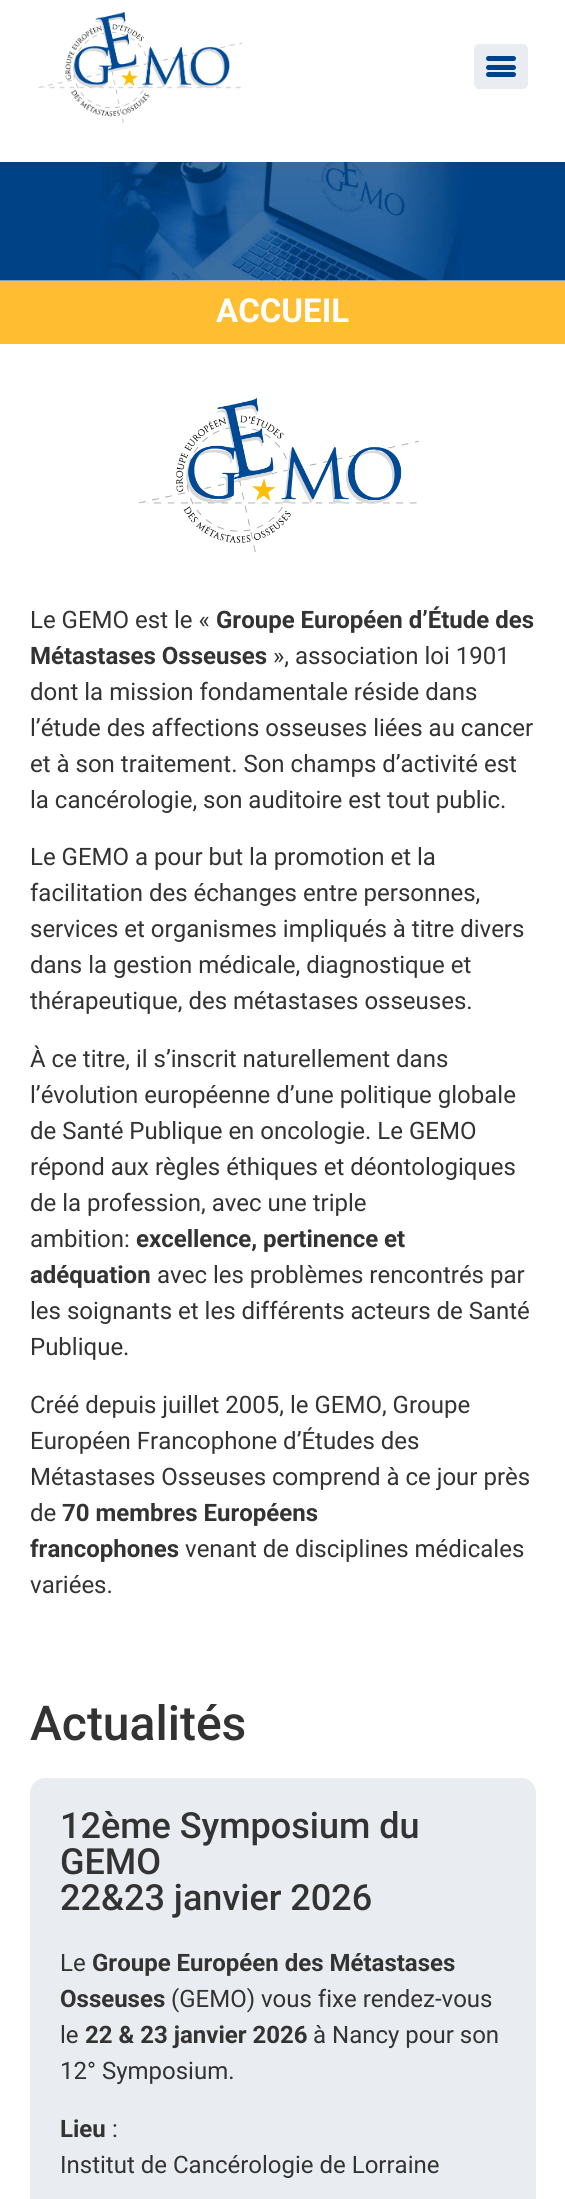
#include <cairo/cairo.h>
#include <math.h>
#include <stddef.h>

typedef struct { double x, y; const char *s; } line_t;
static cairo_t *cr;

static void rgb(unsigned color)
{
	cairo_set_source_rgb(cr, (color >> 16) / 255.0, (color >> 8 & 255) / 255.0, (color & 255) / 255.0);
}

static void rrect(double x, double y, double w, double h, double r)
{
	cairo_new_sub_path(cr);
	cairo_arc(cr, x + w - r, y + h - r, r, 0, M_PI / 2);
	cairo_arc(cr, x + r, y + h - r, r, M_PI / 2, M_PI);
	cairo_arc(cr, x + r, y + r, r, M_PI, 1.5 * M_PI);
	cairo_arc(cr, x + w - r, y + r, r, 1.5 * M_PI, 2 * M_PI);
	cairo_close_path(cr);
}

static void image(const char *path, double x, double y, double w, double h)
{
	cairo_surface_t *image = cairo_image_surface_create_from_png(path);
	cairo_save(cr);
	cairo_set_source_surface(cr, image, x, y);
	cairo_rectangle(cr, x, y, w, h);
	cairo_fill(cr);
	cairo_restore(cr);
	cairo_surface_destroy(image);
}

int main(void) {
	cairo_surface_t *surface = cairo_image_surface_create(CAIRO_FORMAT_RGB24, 565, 2199);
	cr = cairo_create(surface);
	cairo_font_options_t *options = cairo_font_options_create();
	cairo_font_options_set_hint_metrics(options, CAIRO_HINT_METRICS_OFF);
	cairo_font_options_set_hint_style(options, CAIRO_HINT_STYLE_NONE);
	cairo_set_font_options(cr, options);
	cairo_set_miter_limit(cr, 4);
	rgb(0xffffff);
	cairo_paint(cr);
	image("img/1.png", 38, 12, 205, 112);
	rgb(0xe9edf2);
	rrect(474, 44, 54, 45, 5);
	cairo_fill(cr);
	rgb(0x004287);
	rrect(486, 65, 30, 5, 2.5);
	cairo_fill(cr);
	rrect(486, 56, 30, 5, 2.5);
	cairo_fill(cr);
	rrect(486, 72, 30, 5, 2.5);
	cairo_fill(cr);
	image("img/2.png", 0, 162, 565, 119);
	rgb(0xffbd31);
	cairo_rectangle(cr, 0, 281, 565, 63);
	cairo_fill(cr);
	image("img/3.png", 138, 398, 281, 155);
	rgb(0xe9edf2);
	rrect(30, 1778, 506, 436, 15);
	cairo_fill(cr);
	cairo_select_font_face(cr, "Roboto", CAIRO_FONT_SLANT_NORMAL, CAIRO_FONT_WEIGHT_BOLD);
	cairo_set_font_size(cr, 33);
	rgb(0xffffff);
	cairo_move_to(cr, 216, 322);
	cairo_show_text(cr, "ACCUEIL");
	cairo_select_font_face(cr, "Roboto", CAIRO_FONT_SLANT_NORMAL, CAIRO_FONT_WEIGHT_NORMAL);
	cairo_set_font_size(cr, 24);
	rgb(0x333333);
	cairo_move_to(cr, 30, 628);
	cairo_show_text(cr, "Le GEMO est le «");
	cairo_select_font_face(cr, "Roboto", CAIRO_FONT_SLANT_NORMAL, CAIRO_FONT_WEIGHT_BOLD);
	cairo_move_to(cr, 216, 628);
	cairo_show_text(cr, "Groupe Européen d’Étude des");
	cairo_move_to(cr, 30, 664);
	cairo_show_text(cr, "Métastases Osseuses");
	cairo_select_font_face(cr, "Roboto", CAIRO_FONT_SLANT_NORMAL, CAIRO_FONT_WEIGHT_NORMAL);
	{
		static const line_t items[] = {
			{273, 664, "», association loi 1901"},
			{30, 700, "dont la mission fondamentale réside dans"},
			{30, 736, "l’étude des affections osseuses liées au cancer"},
			{30, 772, "et à son traitement. Son champs d’activité est"},
			{30, 808, "la cancérologie, son auditoire est tout public."},
			{30, 865, "Le GEMO a pour but la promotion et la"},
			{30, 901, "facilitation des échanges entre personnes,"},
			{30, 937, "services et organismes impliqués à titre divers"},
			{30, 973, "dans la gestion médicale, diagnostique et"},
			{30, 1009, "thérapeutique, des métastases osseuses."},
			{30, 1067, "À ce titre, il s’inscrit naturellement dans"},
			{30, 1103, "l’évolution européenne d’une politique globale"},
			{30, 1139, "de Santé Publique en oncologie. Le GEMO"},
			{30, 1175, "répond aux règles éthiques et déontologiques"},
			{30, 1211, "de la profession, avec une triple"},
			{30, 1247, "ambition:"},
		};
		for (size_t i = 0; i < sizeof items / sizeof *items; i++) {
			cairo_move_to(cr, items[i].x, items[i].y);
			cairo_show_text(cr, items[i].s);
		}
	}
	cairo_select_font_face(cr, "Roboto", CAIRO_FONT_SLANT_NORMAL, CAIRO_FONT_WEIGHT_BOLD);
	cairo_move_to(cr, 136, 1247);
	cairo_show_text(cr, "excellence, pertinence et");
	cairo_move_to(cr, 30, 1283);
	cairo_show_text(cr, "adéquation");
	cairo_select_font_face(cr, "Roboto", CAIRO_FONT_SLANT_NORMAL, CAIRO_FONT_WEIGHT_NORMAL);
	{
		static const line_t items[] = {
			{157, 1283, "avec les problèmes rencontrés par"},
			{30, 1319, "les soignants et les différents acteurs de Santé"},
			{30, 1355, "Publique."},
			{30, 1413, "Créé depuis juillet 2005, le GEMO, Groupe"},
			{30, 1449, "Européen Francophone d’Études des"},
			{30, 1485, "Métastases Osseuses comprend à ce jour près"},
			{30, 1521, "de"},
		};
		for (size_t i = 0; i < sizeof items / sizeof *items; i++) {
			cairo_move_to(cr, items[i].x, items[i].y);
			cairo_show_text(cr, items[i].s);
		}
	}
	cairo_select_font_face(cr, "Roboto", CAIRO_FONT_SLANT_NORMAL, CAIRO_FONT_WEIGHT_BOLD);
	cairo_move_to(cr, 62, 1521);
	cairo_show_text(cr, "70 membres Européens");
	cairo_move_to(cr, 30, 1557);
	cairo_show_text(cr, "francophones");
	cairo_select_font_face(cr, "Roboto", CAIRO_FONT_SLANT_NORMAL, CAIRO_FONT_WEIGHT_NORMAL);
	cairo_move_to(cr, 185, 1557);
	cairo_show_text(cr, "venant de disciplines médicales");
	cairo_move_to(cr, 30, 1593);
	cairo_show_text(cr, "variées.");
	cairo_select_font_face(cr, "Roboto Medium", CAIRO_FONT_SLANT_NORMAL, CAIRO_FONT_WEIGHT_NORMAL);
	cairo_set_font_size(cr, 48);
	cairo_move_to(cr, 30, 1740);
	cairo_show_text(cr, "Actualités");
	cairo_set_font_size(cr, 36);
	{
		static const line_t items[] = {
			{60, 1838, "12ème Symposium du"},
			{60, 1874, "GEMO"},
			{60, 1910, "22&23 janvier 2026"},
		};
		for (size_t i = 0; i < sizeof items / sizeof *items; i++) {
			cairo_move_to(cr, items[i].x, items[i].y);
			cairo_show_text(cr, items[i].s);
		}
	}
	cairo_select_font_face(cr, "Roboto", CAIRO_FONT_SLANT_NORMAL, CAIRO_FONT_WEIGHT_NORMAL);
	cairo_set_font_size(cr, 24);
	cairo_move_to(cr, 60, 1971);
	cairo_show_text(cr, "Le");
	cairo_select_font_face(cr, "Roboto", CAIRO_FONT_SLANT_NORMAL, CAIRO_FONT_WEIGHT_BOLD);
	cairo_move_to(cr, 92, 1971);
	cairo_show_text(cr, "Groupe Européen des Métastases");
	cairo_move_to(cr, 60, 2007);
	cairo_show_text(cr, "Osseuses");
	cairo_select_font_face(cr, "Roboto", CAIRO_FONT_SLANT_NORMAL, CAIRO_FONT_WEIGHT_NORMAL);
	cairo_move_to(cr, 171, 2007);
	cairo_show_text(cr, "(GEMO) vous fixe rendez-vous");
	cairo_move_to(cr, 60, 2043);
	cairo_show_text(cr, "le");
	cairo_select_font_face(cr, "Roboto", CAIRO_FONT_SLANT_NORMAL, CAIRO_FONT_WEIGHT_BOLD);
	cairo_move_to(cr, 85, 2043);
	cairo_show_text(cr, "22 & 23 janvier 2026");
	cairo_select_font_face(cr, "Roboto", CAIRO_FONT_SLANT_NORMAL, CAIRO_FONT_WEIGHT_NORMAL);
	cairo_move_to(cr, 313, 2043);
	cairo_show_text(cr, "à Nancy pour son");
	cairo_move_to(cr, 60, 2079);
	cairo_show_text(cr, "12° Symposium.");
	cairo_select_font_face(cr, "Roboto", CAIRO_FONT_SLANT_NORMAL, CAIRO_FONT_WEIGHT_BOLD);
	cairo_move_to(cr, 60, 2137);
	cairo_show_text(cr, "Lieu");
	cairo_select_font_face(cr, "Roboto", CAIRO_FONT_SLANT_NORMAL, CAIRO_FONT_WEIGHT_NORMAL);
	cairo_move_to(cr, 112, 2137);
	cairo_show_text(cr, ":");
	cairo_move_to(cr, 60, 2173);
	cairo_show_text(cr, "Institut de Cancérologie de Lorraine");
	cairo_surface_write_to_png(surface, "page.png");
	cairo_font_options_destroy(options);
	cairo_destroy(cr);
	cairo_surface_destroy(surface);
	return 0;
}
